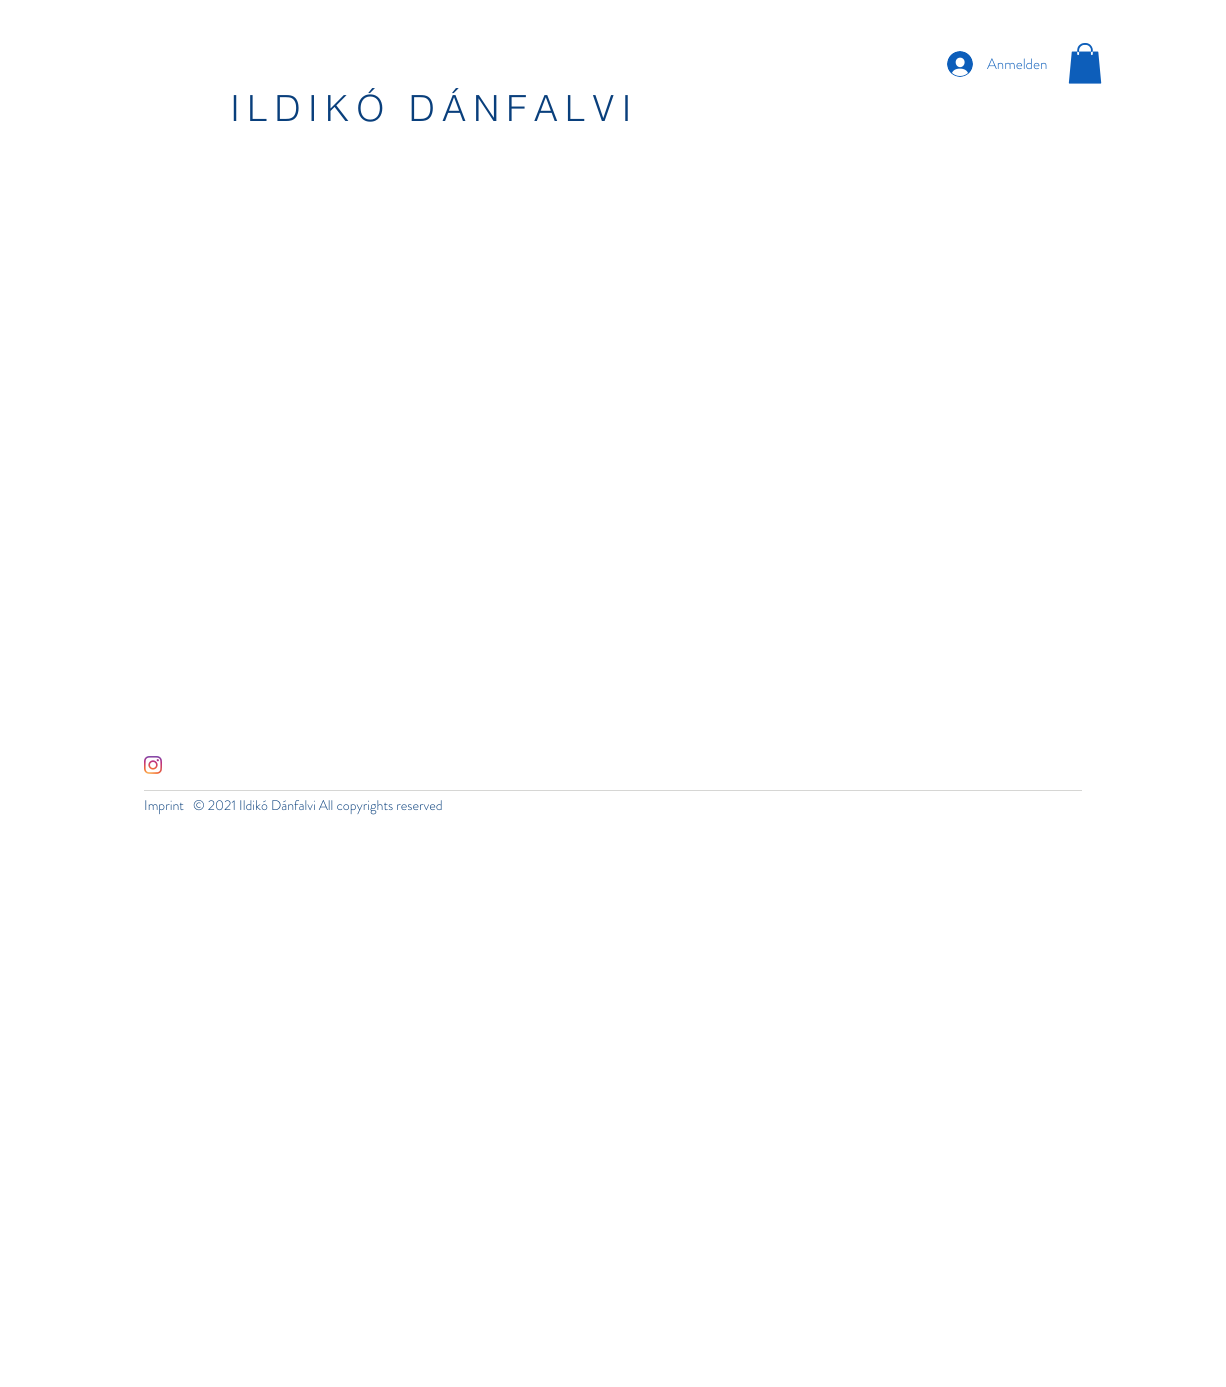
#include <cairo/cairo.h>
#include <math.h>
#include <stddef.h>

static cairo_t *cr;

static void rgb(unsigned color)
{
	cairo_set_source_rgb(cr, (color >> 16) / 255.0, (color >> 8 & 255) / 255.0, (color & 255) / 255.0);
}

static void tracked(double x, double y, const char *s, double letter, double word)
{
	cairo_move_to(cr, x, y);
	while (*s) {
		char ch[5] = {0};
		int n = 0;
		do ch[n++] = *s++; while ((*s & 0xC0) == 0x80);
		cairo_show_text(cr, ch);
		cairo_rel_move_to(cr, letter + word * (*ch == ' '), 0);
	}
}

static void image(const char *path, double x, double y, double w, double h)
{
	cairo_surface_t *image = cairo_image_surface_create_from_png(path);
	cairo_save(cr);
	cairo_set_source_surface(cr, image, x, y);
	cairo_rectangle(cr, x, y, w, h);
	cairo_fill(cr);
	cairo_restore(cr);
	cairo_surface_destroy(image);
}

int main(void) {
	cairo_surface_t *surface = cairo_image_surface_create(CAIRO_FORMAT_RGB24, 1226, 1387);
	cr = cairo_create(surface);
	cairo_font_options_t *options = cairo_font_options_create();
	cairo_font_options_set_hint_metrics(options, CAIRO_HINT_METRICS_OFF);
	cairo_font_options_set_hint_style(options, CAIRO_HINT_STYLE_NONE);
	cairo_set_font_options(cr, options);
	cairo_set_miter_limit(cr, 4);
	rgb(0xffffff);
	cairo_paint(cr);
	image("img/1.png", 947, 51, 26, 26);
	image("img/2.png", 1068, 43, 34, 41);
	image("img/3.png", 144, 756, 18, 18);
	rgb(0xd6d6d4);
	cairo_rectangle(cr, 144, 790, 938, 1);
	cairo_fill(cr);
	cairo_select_font_face(cr, "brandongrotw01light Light", CAIRO_FONT_SLANT_NORMAL, CAIRO_FONT_WEIGHT_NORMAL);
	cairo_set_font_size(cr, 15);
	rgb(0x0d5eba);
	cairo_move_to(cr, 987, 69);
	cairo_show_text(cr, "Anmelden");
	cairo_select_font_face(cr, "helvetica Light", CAIRO_FONT_SLANT_NORMAL, CAIRO_FONT_WEIGHT_NORMAL);
	cairo_set_font_size(cr, 36);
	rgb(0x093f7c);
	tracked(230, 121, "ILDIKÓ DÁNFALVI", 7.25, 0);
	cairo_select_font_face(cr, "brandongrotw01light Light", CAIRO_FONT_SLANT_NORMAL, CAIRO_FONT_WEIGHT_NORMAL);
	cairo_set_font_size(cr, 14);
	cairo_move_to(cr, 144, 810);
	cairo_show_text(cr, "Imprint   © 2021 Ildikó Dánfalvi All copyrights reserved");
	cairo_surface_write_to_png(surface, "page.png");
	cairo_font_options_destroy(options);
	cairo_destroy(cr);
	cairo_surface_destroy(surface);
	return 0;
}
